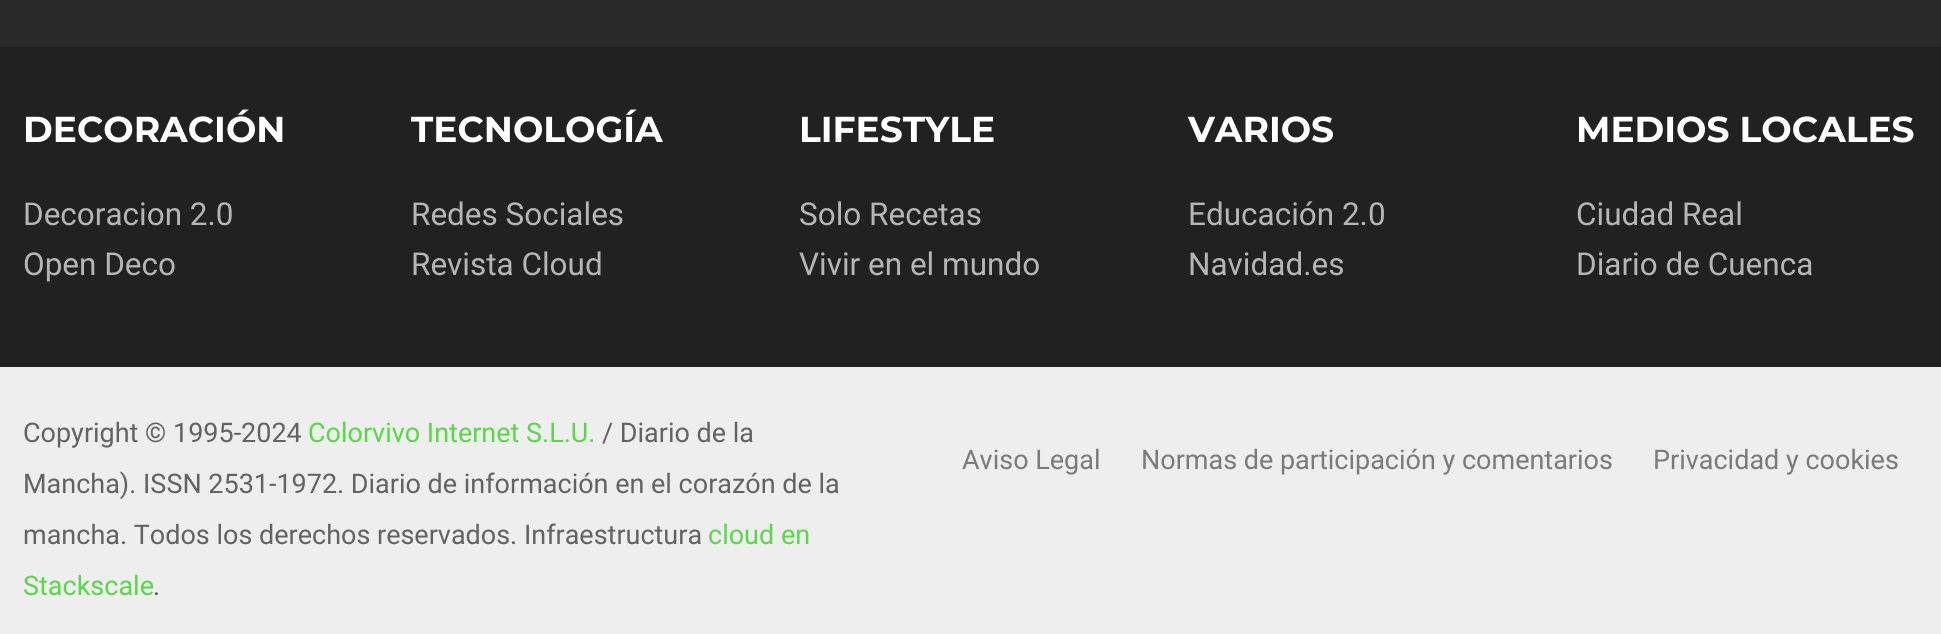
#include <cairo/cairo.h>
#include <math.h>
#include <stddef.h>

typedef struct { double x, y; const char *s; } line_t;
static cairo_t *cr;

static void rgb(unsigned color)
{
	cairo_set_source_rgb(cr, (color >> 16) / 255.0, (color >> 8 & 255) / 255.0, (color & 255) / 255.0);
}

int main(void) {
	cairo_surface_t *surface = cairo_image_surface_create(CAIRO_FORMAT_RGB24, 1941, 634);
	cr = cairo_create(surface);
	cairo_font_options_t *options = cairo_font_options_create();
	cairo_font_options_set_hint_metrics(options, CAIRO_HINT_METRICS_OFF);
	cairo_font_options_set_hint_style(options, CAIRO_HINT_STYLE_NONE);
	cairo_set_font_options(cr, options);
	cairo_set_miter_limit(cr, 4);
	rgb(0x292929);
	cairo_paint(cr);
	rgb(0x212121);
	cairo_rectangle(cr, 0, 47, 1941, 320);
	cairo_fill(cr);
	rgb(0xeeeeee);
	cairo_rectangle(cr, 0, 367, 1941, 267);
	cairo_fill(cr);
	cairo_select_font_face(cr, "Montserrat", CAIRO_FONT_SLANT_NORMAL, CAIRO_FONT_WEIGHT_BOLD);
	cairo_set_font_size(cr, 36);
	rgb(0xffffff);
	cairo_move_to(cr, 23, 142);
	cairo_show_text(cr, "DECORACIÓN");
	cairo_select_font_face(cr, "Roboto", CAIRO_FONT_SLANT_NORMAL, CAIRO_FONT_WEIGHT_NORMAL);
	cairo_set_font_size(cr, 31.5);
	rgb(0xb6b6b6);
	cairo_move_to(cr, 23, 225);
	cairo_show_text(cr, "Decoracion 2.0");
	cairo_move_to(cr, 23, 275);
	cairo_show_text(cr, "Open Deco");
	cairo_select_font_face(cr, "Montserrat", CAIRO_FONT_SLANT_NORMAL, CAIRO_FONT_WEIGHT_BOLD);
	cairo_set_font_size(cr, 36);
	rgb(0xffffff);
	cairo_move_to(cr, 411, 142);
	cairo_show_text(cr, "TECNOLOGÍA");
	cairo_select_font_face(cr, "Roboto", CAIRO_FONT_SLANT_NORMAL, CAIRO_FONT_WEIGHT_NORMAL);
	cairo_set_font_size(cr, 31.5);
	rgb(0xb6b6b6);
	cairo_move_to(cr, 411, 225);
	cairo_show_text(cr, "Redes Sociales");
	cairo_move_to(cr, 411, 275);
	cairo_show_text(cr, "Revista Cloud");
	cairo_select_font_face(cr, "Montserrat", CAIRO_FONT_SLANT_NORMAL, CAIRO_FONT_WEIGHT_BOLD);
	cairo_set_font_size(cr, 36);
	rgb(0xffffff);
	cairo_move_to(cr, 799, 142);
	cairo_show_text(cr, "LIFESTYLE");
	cairo_select_font_face(cr, "Roboto", CAIRO_FONT_SLANT_NORMAL, CAIRO_FONT_WEIGHT_NORMAL);
	cairo_set_font_size(cr, 31.5);
	rgb(0xb6b6b6);
	cairo_move_to(cr, 799, 225);
	cairo_show_text(cr, "Solo Recetas");
	cairo_move_to(cr, 799, 275);
	cairo_show_text(cr, "Vivir en el mundo");
	cairo_select_font_face(cr, "Montserrat", CAIRO_FONT_SLANT_NORMAL, CAIRO_FONT_WEIGHT_BOLD);
	cairo_set_font_size(cr, 36);
	rgb(0xffffff);
	cairo_move_to(cr, 1188, 142);
	cairo_show_text(cr, "VARIOS");
	cairo_select_font_face(cr, "Roboto", CAIRO_FONT_SLANT_NORMAL, CAIRO_FONT_WEIGHT_NORMAL);
	cairo_set_font_size(cr, 31.5);
	rgb(0xb6b6b6);
	cairo_move_to(cr, 1188, 225);
	cairo_show_text(cr, "Educación 2.0");
	cairo_move_to(cr, 1188, 275);
	cairo_show_text(cr, "Navidad.es");
	cairo_select_font_face(cr, "Montserrat", CAIRO_FONT_SLANT_NORMAL, CAIRO_FONT_WEIGHT_BOLD);
	cairo_set_font_size(cr, 36);
	rgb(0xffffff);
	cairo_move_to(cr, 1576, 142);
	cairo_show_text(cr, "MEDIOS LOCALES");
	cairo_select_font_face(cr, "Roboto", CAIRO_FONT_SLANT_NORMAL, CAIRO_FONT_WEIGHT_NORMAL);
	cairo_set_font_size(cr, 31.5);
	rgb(0xb6b6b6);
	cairo_move_to(cr, 1576, 225);
	cairo_show_text(cr, "Ciudad Real");
	cairo_move_to(cr, 1576, 275);
	cairo_show_text(cr, "Diario de Cuenca");
	cairo_set_font_size(cr, 27);
	rgb(0x626262);
	cairo_move_to(cr, 23, 442);
	cairo_show_text(cr, "Copyright © 1995-2024");
	rgb(0x58d847);
	cairo_move_to(cr, 308, 442);
	cairo_show_text(cr, "Colorvivo Internet S.L.U.");
	rgb(0x626262);
	{
		static const line_t items[] = {
			{602, 442, "/ Diario de la"},
			{23, 493, "Mancha). ISSN 2531-1972. Diario de información en el corazón de la"},
			{23, 544, "mancha. Todos los derechos reservados. Infraestructura"},
		};
		for (size_t i = 0; i < sizeof items / sizeof *items; i++) {
			cairo_move_to(cr, items[i].x, items[i].y);
			cairo_show_text(cr, items[i].s);
		}
	}
	rgb(0x58d847);
	cairo_move_to(cr, 708, 544);
	cairo_show_text(cr, "cloud en");
	cairo_move_to(cr, 23, 595);
	cairo_show_text(cr, "Stackscale");
	rgb(0x626262);
	cairo_move_to(cr, 153, 595);
	cairo_show_text(cr, ".");
	rgb(0x7a7a7a);
	{
		static const line_t items[] = {
			{962, 469, "Aviso Legal"},
			{1141, 469, "Normas de participación y comentarios"},
			{1653, 469, "Privacidad y cookies"},
		};
		for (size_t i = 0; i < sizeof items / sizeof *items; i++) {
			cairo_move_to(cr, items[i].x, items[i].y);
			cairo_show_text(cr, items[i].s);
		}
	}
	cairo_surface_write_to_png(surface, "page.png");
	cairo_font_options_destroy(options);
	cairo_destroy(cr);
	cairo_surface_destroy(surface);
	return 0;
}
